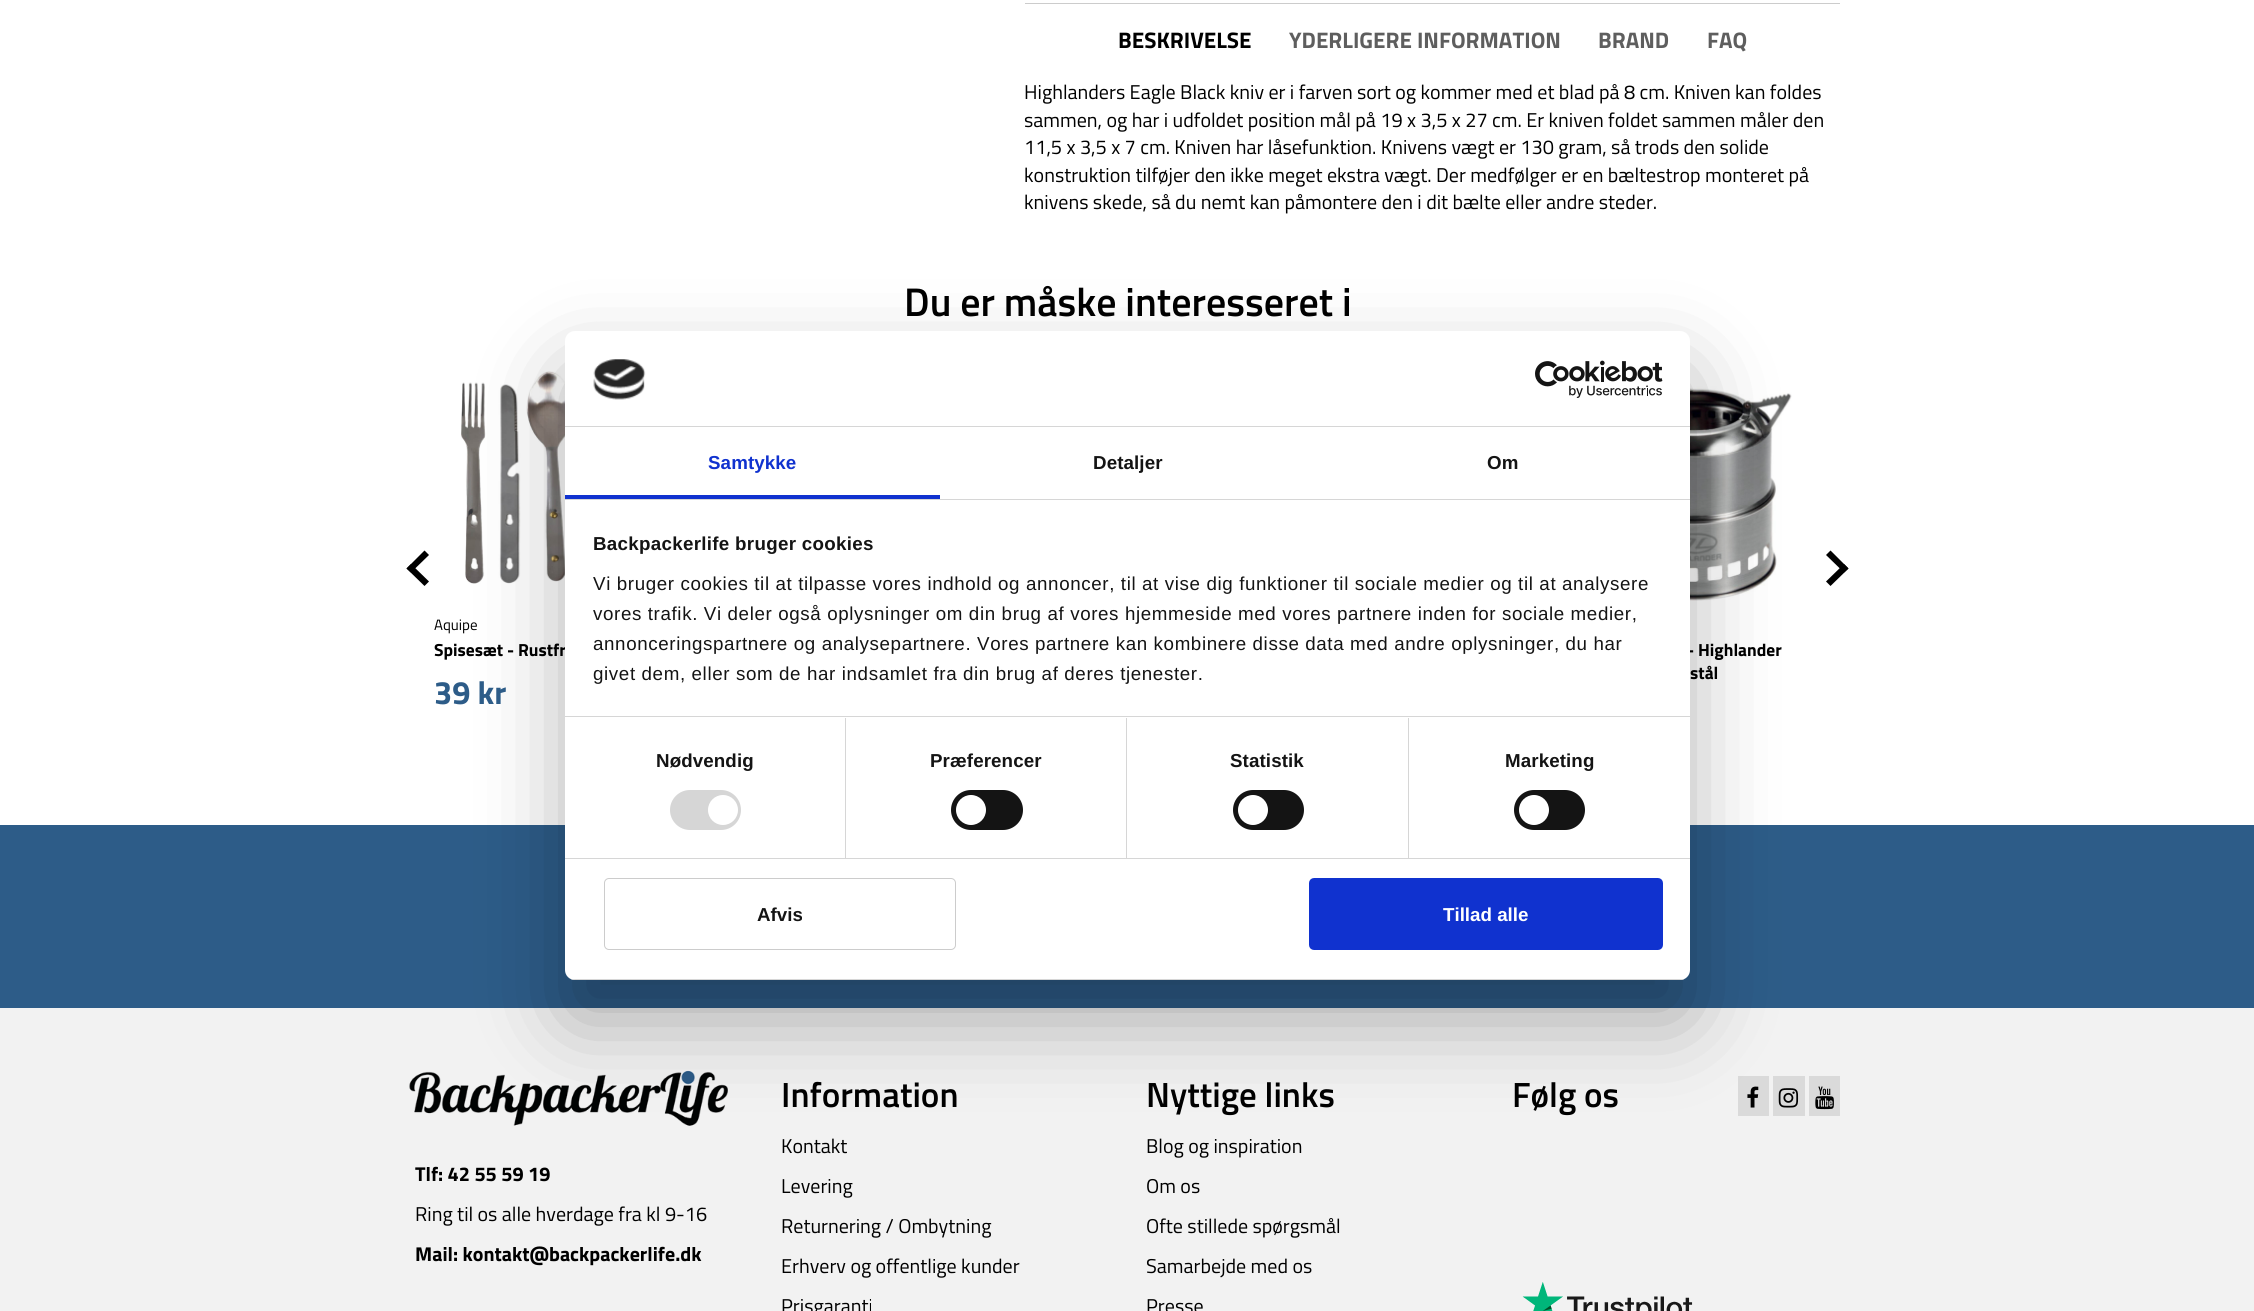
#include <cairo/cairo.h>
#include <math.h>
#include <stddef.h>

typedef struct { double x, y; const char *s; } line_t;
typedef struct { double x, y, w, h; unsigned color; } box_t;
static cairo_t *cr;

static void rgb(unsigned color)
{
	cairo_set_source_rgb(cr, (color >> 16) / 255.0, (color >> 8 & 255) / 255.0, (color & 255) / 255.0);
}

static void tracked(double x, double y, const char *s, double letter, double word)
{
	cairo_move_to(cr, x, y);
	while (*s) {
		char ch[5] = {0};
		int n = 0;
		do ch[n++] = *s++; while ((*s & 0xC0) == 0x80);
		cairo_show_text(cr, ch);
		cairo_rel_move_to(cr, letter + word * (*ch == ' '), 0);
	}
}

static void rrect(double x, double y, double w, double h, double r)
{
	cairo_new_sub_path(cr);
	cairo_arc(cr, x + w - r, y + h - r, r, 0, M_PI / 2);
	cairo_arc(cr, x + r, y + h - r, r, M_PI / 2, M_PI);
	cairo_arc(cr, x + r, y + r, r, M_PI, 1.5 * M_PI);
	cairo_arc(cr, x + w - r, y + r, r, 1.5 * M_PI, 2 * M_PI);
	cairo_close_path(cr);
}

static void soft_shadow(double x, double y, double w, double h, double r, double blur, double alpha)
{
	cairo_push_group_with_content(cr, CAIRO_CONTENT_ALPHA);
	cairo_set_operator(cr, CAIRO_OPERATOR_SOURCE);
	for (int i = 15; i >= -15 && fmin(w, h) + blur * i / 3 > 0; i -= 2) {
		double e = blur * i / 6;
		cairo_set_source_rgba(cr, 0, 0, 0, alpha * erfc((i - 1) / 8.5) / 2);
		rrect(x - e, y - e, w + 2 * e, h + 2 * e, fmax(0, fmin(r + e + blur * .6, fmin(w, h) / 2 + e)));
		cairo_fill(cr);
	}
	cairo_pattern_t *soft = cairo_pop_group(cr);
	cairo_mask(cr, soft);
	cairo_pattern_destroy(soft);
}

static void image(const char *path, double x, double y, double w, double h)
{
	cairo_surface_t *image = cairo_image_surface_create_from_png(path);
	cairo_save(cr);
	cairo_set_source_surface(cr, image, x, y);
	cairo_rectangle(cr, x, y, w, h);
	cairo_fill(cr);
	cairo_restore(cr);
	cairo_surface_destroy(image);
}

int main(void) {
	cairo_surface_t *surface = cairo_image_surface_create(CAIRO_FORMAT_RGB24, 2254, 1311);
	cr = cairo_create(surface);
	cairo_font_options_t *options = cairo_font_options_create();
	cairo_font_options_set_hint_metrics(options, CAIRO_HINT_METRICS_OFF);
	cairo_font_options_set_hint_style(options, CAIRO_HINT_STYLE_NONE);
	cairo_set_font_options(cr, options);
	cairo_set_miter_limit(cr, 4);
	rgb(0xffffff);
	cairo_paint(cr);
	rgb(0xcccccc);
	cairo_rectangle(cr, 1025, 3, 815, 1);
	cairo_fill(cr);
	rgb(0x000000);
	cairo_new_path(cr);
	cairo_move_to(cr, 429, 581.5);
	cairo_line_to(cr, 424.5, 586);
	cairo_line_to(cr, 406.5, 568.5);
	cairo_line_to(cr, 411, 564);
	cairo_close_path(cr);
	cairo_fill(cr);
	cairo_new_path(cr);
	cairo_move_to(cr, 429, 555);
	cairo_line_to(cr, 411, 572.5);
	cairo_line_to(cr, 406.5, 568.5);
	cairo_line_to(cr, 424.5, 550.5);
	cairo_close_path(cr);
	cairo_fill(cr);
	cairo_new_path(cr);
	cairo_move_to(cr, 1826, 555);
	cairo_line_to(cr, 1830.5, 550.5);
	cairo_line_to(cr, 1848.5, 568.5);
	cairo_line_to(cr, 1844, 572.5);
	cairo_close_path(cr);
	cairo_fill(cr);
	cairo_new_path(cr);
	cairo_move_to(cr, 1826, 581.5);
	cairo_line_to(cr, 1844, 564);
	cairo_line_to(cr, 1848.5, 568.5);
	cairo_line_to(cr, 1830.5, 586);
	cairo_close_path(cr);
	cairo_fill(cr);
	image("img/1.png", 461, 371, 104, 217);
	image("img/2.png", 1690, 353, 102, 248);
	{
		static const box_t items[] = {
			{0, 825, 2254, 183, 0x2d5c88},
			{0, 1008, 2254, 303, 0xf2f2f2},
			{1738, 1076, 31, 40, 0xdadada},
		};
		for (size_t i = 0; i < sizeof items / sizeof *items; i++) {
			rgb(items[i].color);
			cairo_rectangle(cr, items[i].x, items[i].y, items[i].w, items[i].h);
			cairo_fill(cr);
		}
	}
	image("img/3.png", 1747, 1086, 12, 22);
	cairo_rectangle(cr, 1773, 1076, 32, 40);
	cairo_fill(cr);
	image("img/4.png", 1778, 1088, 21, 20);
	cairo_rectangle(cr, 1809, 1076, 31, 40);
	cairo_fill(cr);
	image("img/5.png", 1815, 1086, 19, 24);
	image("img/6.png", 1522, 1282, 171, 29);
	image("img/7.png", 409, 1070, 319, 56);
	rgb(0x000000);
	soft_shadow(565, 371, 1125, 649, 10, 42.5, 0.3);
	cairo_select_font_face(cr, "Titillium Web", CAIRO_FONT_SLANT_NORMAL, CAIRO_FONT_WEIGHT_BOLD);
	cairo_set_font_size(cr, 22.5);
	rgb(0x000000);
	cairo_move_to(cr, 1118, 48);
	cairo_show_text(cr, "BESKRIVELSE");
	rgb(0x5e5e5e);
	{
		static const line_t items[] = {
			{1289, 48, "YDERLIGERE INFORMATION"},
			{1598, 48, "BRAND"},
			{1707, 48, "FAQ"},
		};
		for (size_t i = 0; i < sizeof items / sizeof *items; i++) {
			cairo_move_to(cr, items[i].x, items[i].y);
			cairo_show_text(cr, items[i].s);
		}
	}
	cairo_select_font_face(cr, "Titillium Web", CAIRO_FONT_SLANT_NORMAL, CAIRO_FONT_WEIGHT_NORMAL);
	cairo_set_font_size(cr, 20);
	rgb(0x000000);
	{
		static const line_t items[] = {
			{1024, 99, "Highlanders Eagle Black kniv er i farven sort og kommer med et blad på 8 cm. Kniven kan foldes"},
			{1024, 127, "sammen, og har i udfoldet position mål på 19 x 3,5 x 27 cm. Er kniven foldet sammen måler den"},
			{1024, 154, "11,5 x 3,5 x 7 cm. Kniven har låsefunktion. Knivens vægt er 130 gram, så trods den solide"},
			{1024, 182, "konstruktion tilføjer den ikke meget ekstra vægt. Der medfølger er en bæltestrop monteret på"},
			{1024, 209, "knivens skede, så du nemt kan påmontere den i dit bælte eller andre steder."},
		};
		for (size_t i = 0; i < sizeof items / sizeof *items; i++) {
			cairo_move_to(cr, items[i].x, items[i].y);
			cairo_show_text(cr, items[i].s);
		}
	}
	cairo_select_font_face(cr, "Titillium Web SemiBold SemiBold", CAIRO_FONT_SLANT_NORMAL, CAIRO_FONT_WEIGHT_NORMAL);
	cairo_set_font_size(cr, 40);
	cairo_move_to(cr, 904, 316);
	cairo_show_text(cr, "Du er måske interesseret i");
	cairo_select_font_face(cr, "Titillium Web", CAIRO_FONT_SLANT_NORMAL, CAIRO_FONT_WEIGHT_NORMAL);
	cairo_set_font_size(cr, 15);
	cairo_move_to(cr, 434, 630);
	cairo_show_text(cr, "Aquipe");
	cairo_select_font_face(cr, "Titillium Web", CAIRO_FONT_SLANT_NORMAL, CAIRO_FONT_WEIGHT_BOLD);
	cairo_set_font_size(cr, 17.5);
	cairo_move_to(cr, 434, 656);
	cairo_show_text(cr, "Spisesæt - Rustfr");
	cairo_set_font_size(cr, 32.5);
	rgb(0x2d5c88);
	cairo_move_to(cr, 434, 704);
	cairo_show_text(cr, "39 kr");
	cairo_set_font_size(cr, 17.5);
	rgb(0x000000);
	cairo_move_to(cr, 1687, 656);
	cairo_show_text(cr, "- Highlander");
	cairo_move_to(cr, 1690, 679);
	cairo_show_text(cr, "stål");
	cairo_select_font_face(cr, "Titillium Web SemiBold SemiBold", CAIRO_FONT_SLANT_NORMAL, CAIRO_FONT_WEIGHT_NORMAL);
	cairo_set_font_size(cr, 35);
	cairo_move_to(cr, 781, 1107);
	cairo_show_text(cr, "Information");
	cairo_select_font_face(cr, "Titillium Web", CAIRO_FONT_SLANT_NORMAL, CAIRO_FONT_WEIGHT_NORMAL);
	cairo_set_font_size(cr, 20);
	{
		static const line_t items[] = {
			{781, 1153, "Kontakt"},
			{781, 1193, "Levering"},
			{781, 1233, "Returnering / Ombytning"},
			{781, 1273, "Erhverv og offentlige kunder"},
			{781, 1313, "Prisgaranti"},
		};
		for (size_t i = 0; i < sizeof items / sizeof *items; i++) {
			cairo_move_to(cr, items[i].x, items[i].y);
			cairo_show_text(cr, items[i].s);
		}
	}
	cairo_select_font_face(cr, "Titillium Web SemiBold SemiBold", CAIRO_FONT_SLANT_NORMAL, CAIRO_FONT_WEIGHT_NORMAL);
	cairo_set_font_size(cr, 35);
	cairo_move_to(cr, 1146, 1107);
	cairo_show_text(cr, "Nyttige links");
	cairo_select_font_face(cr, "Titillium Web", CAIRO_FONT_SLANT_NORMAL, CAIRO_FONT_WEIGHT_NORMAL);
	cairo_set_font_size(cr, 20);
	{
		static const line_t items[] = {
			{1146, 1153, "Blog og inspiration"},
			{1146, 1193, "Om os"},
			{1146, 1233, "Ofte stillede spørgsmål"},
			{1146, 1273, "Samarbejde med os"},
			{1146, 1313, "Presse"},
		};
		for (size_t i = 0; i < sizeof items / sizeof *items; i++) {
			cairo_move_to(cr, items[i].x, items[i].y);
			cairo_show_text(cr, items[i].s);
		}
	}
	cairo_select_font_face(cr, "Titillium Web SemiBold SemiBold", CAIRO_FONT_SLANT_NORMAL, CAIRO_FONT_WEIGHT_NORMAL);
	cairo_set_font_size(cr, 35);
	cairo_move_to(cr, 1512, 1107);
	cairo_show_text(cr, "Følg os");
	cairo_select_font_face(cr, "Titillium Web", CAIRO_FONT_SLANT_NORMAL, CAIRO_FONT_WEIGHT_BOLD);
	cairo_set_font_size(cr, 20);
	cairo_move_to(cr, 415, 1181);
	cairo_show_text(cr, "Tlf: 42 55 59 19");
	cairo_select_font_face(cr, "Titillium Web", CAIRO_FONT_SLANT_NORMAL, CAIRO_FONT_WEIGHT_NORMAL);
	cairo_move_to(cr, 415, 1221);
	cairo_show_text(cr, "Ring til os alle hverdage fra kl 9-16");
	cairo_select_font_face(cr, "Titillium Web", CAIRO_FONT_SLANT_NORMAL, CAIRO_FONT_WEIGHT_BOLD);
	cairo_move_to(cr, 415, 1261);
	cairo_show_text(cr, "Mail: kontakt@backpackerlife.dk");
	rgb(0xffffff);
	rrect(565, 331, 1125, 649, 10);
	cairo_fill(cr);
	rgb(0xd6d6d6);
	cairo_rectangle(cr, 565, 426, 1125, 1);
	cairo_fill(cr);
	image("img/8.png", 593, 359, 53, 41);
	image("img/9.png", 1535, 360, 128, 38);
	cairo_rectangle(cr, 565, 499, 1125, 1);
	cairo_fill(cr);
	rgb(0x1032cf);
	cairo_rectangle(cr, 565, 495, 375, 4);
	cairo_fill(cr);
	cairo_select_font_face(cr, "Liberation Sans", CAIRO_FONT_SLANT_NORMAL, CAIRO_FONT_WEIGHT_BOLD);
	cairo_set_font_size(cr, 18.75);
	tracked(708, 469, "Samtykke", 0.1, 0);
	rgb(0x141414);
	tracked(1093, 469, "Detaljer", 0.1, 0);
	tracked(1487, 469, "Om", 0.1, 0);
	rgb(0xd6d6d6);
	cairo_rectangle(cr, 565, 716, 1125, 1);
	cairo_fill(cr);
	rgb(0x141414);
	tracked(593, 550, "Backpackerlife bruger cookies", 0.3, 0);
	cairo_select_font_face(cr, "Liberation Sans", CAIRO_FONT_SLANT_NORMAL, CAIRO_FONT_WEIGHT_NORMAL);
	{
		static const line_t items[] = {
			{593, 590, "Vi bruger cookies til at tilpasse vores indhold og annoncer, til at vise dig funktioner til sociale medier og til at analysere"},
			{593, 620, "vores trafik. Vi deler også oplysninger om din brug af vores hjemmeside med vores partnere inden for sociale medier,"},
			{593, 650, "annonceringspartnere og analysepartnere. Vores partnere kan kombinere disse data med andre oplysninger, du har"},
			{593, 680, "givet dem, eller som de har indsamlet fra din brug af deres tjenester."},
		};
		for (size_t i = 0; i < sizeof items / sizeof *items; i++) {
			tracked(items[i].x, items[i].y, items[i].s, 0.62, 0);
		}
	}
	rgb(0xd6d6d6);
	cairo_rectangle(cr, 565, 858, 1125, 1);
	cairo_fill(cr);
	cairo_rectangle(cr, 845, 718, 1, 140);
	cairo_fill(cr);
	cairo_select_font_face(cr, "Liberation Sans", CAIRO_FONT_SLANT_NORMAL, CAIRO_FONT_WEIGHT_BOLD);
	rgb(0x141414);
	tracked(656, 767, "Nødvendig", 0.1, 0);
	rgb(0xd6d6d6);
	rrect(670, 790, 71, 40, 20);
	cairo_fill(cr);
	rgb(0xffffff);
	cairo_arc(cr, 723, 810, 15, 0, 2 * M_PI);
	cairo_fill(cr);
	rgb(0xd6d6d6);
	cairo_rectangle(cr, 1126, 718, 1, 140);
	cairo_fill(cr);
	rgb(0x141414);
	tracked(930, 767, "Præferencer", 0.1, 0);
	rrect(951, 790, 72, 40, 20);
	cairo_fill(cr);
	rgb(0xffffff);
	cairo_arc(cr, 971, 810, 15, 0, 2 * M_PI);
	cairo_fill(cr);
	rgb(0xd6d6d6);
	cairo_rectangle(cr, 1408, 718, 1, 140);
	cairo_fill(cr);
	rgb(0x141414);
	tracked(1230, 767, "Statistik", 0.1, 0);
	rrect(1233, 790, 71, 40, 20);
	cairo_fill(cr);
	rgb(0xffffff);
	cairo_arc(cr, 1253, 810, 15, 0, 2 * M_PI);
	cairo_fill(cr);
	rgb(0x141414);
	tracked(1505, 767, "Marketing", 0.1, 0);
	rrect(1514, 790, 71, 40, 20);
	cairo_fill(cr);
	rgb(0xffffff);
	cairo_arc(cr, 1534, 810, 15, 0, 2 * M_PI);
	cairo_fill(cr);
	cairo_save(cr);
	rrect(565, 331, 1125, 649, 10);
	cairo_clip(cr);
	rgb(0xd6d6d6);
	cairo_rectangle(cr, 565, 979, 1125, 1);
	cairo_fill(cr);
	cairo_restore(cr);
	rrect(604.5, 878.5, 351, 71, 4.5);
	rgb(0xcccccc);
	cairo_set_line_width(cr, 1);
	cairo_stroke(cr);
	rgb(0x141414);
	cairo_move_to(cr, 757, 921);
	cairo_show_text(cr, "Afvis");
	rgb(0x1032cf);
	rrect(1310.5, 879.5, 351, 69, 3.5);
	cairo_fill_preserve(cr);
	cairo_set_line_width(cr, 3);
	cairo_stroke(cr);
	rgb(0xffffff);
	cairo_move_to(cr, 1443, 921);
	cairo_show_text(cr, "Tillad alle");
	cairo_surface_write_to_png(surface, "page.png");
	cairo_font_options_destroy(options);
	cairo_destroy(cr);
	cairo_surface_destroy(surface);
	return 0;
}
